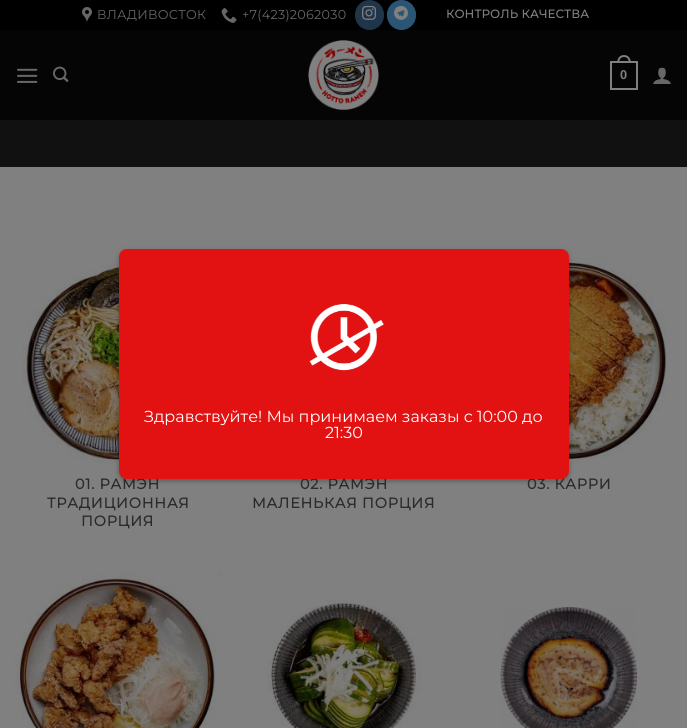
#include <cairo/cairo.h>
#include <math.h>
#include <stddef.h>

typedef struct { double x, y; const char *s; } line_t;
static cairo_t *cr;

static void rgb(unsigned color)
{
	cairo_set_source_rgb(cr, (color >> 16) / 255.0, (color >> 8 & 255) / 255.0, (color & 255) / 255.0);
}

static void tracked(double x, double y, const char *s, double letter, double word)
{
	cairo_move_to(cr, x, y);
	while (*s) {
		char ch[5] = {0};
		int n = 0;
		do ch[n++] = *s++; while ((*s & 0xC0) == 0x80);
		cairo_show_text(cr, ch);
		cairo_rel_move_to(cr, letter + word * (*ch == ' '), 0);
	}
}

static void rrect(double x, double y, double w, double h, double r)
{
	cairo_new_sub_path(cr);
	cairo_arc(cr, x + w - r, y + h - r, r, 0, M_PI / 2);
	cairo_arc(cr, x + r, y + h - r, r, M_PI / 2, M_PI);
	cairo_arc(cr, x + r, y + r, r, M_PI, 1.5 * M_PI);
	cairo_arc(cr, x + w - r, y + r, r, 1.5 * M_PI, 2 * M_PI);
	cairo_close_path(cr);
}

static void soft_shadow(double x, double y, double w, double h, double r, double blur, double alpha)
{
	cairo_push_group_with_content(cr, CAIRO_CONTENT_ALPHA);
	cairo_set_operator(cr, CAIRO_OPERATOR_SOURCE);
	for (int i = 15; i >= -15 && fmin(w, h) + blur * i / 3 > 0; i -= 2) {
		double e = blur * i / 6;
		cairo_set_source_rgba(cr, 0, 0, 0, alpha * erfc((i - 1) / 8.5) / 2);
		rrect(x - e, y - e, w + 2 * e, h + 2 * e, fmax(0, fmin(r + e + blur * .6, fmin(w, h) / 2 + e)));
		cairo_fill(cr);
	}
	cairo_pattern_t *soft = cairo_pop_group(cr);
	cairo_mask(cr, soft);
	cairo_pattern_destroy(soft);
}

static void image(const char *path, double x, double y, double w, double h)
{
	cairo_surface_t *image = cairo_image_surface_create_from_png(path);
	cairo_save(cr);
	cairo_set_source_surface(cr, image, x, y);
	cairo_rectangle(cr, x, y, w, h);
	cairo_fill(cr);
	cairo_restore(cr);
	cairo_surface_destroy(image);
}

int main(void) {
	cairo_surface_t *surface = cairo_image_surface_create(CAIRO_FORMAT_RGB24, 687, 728);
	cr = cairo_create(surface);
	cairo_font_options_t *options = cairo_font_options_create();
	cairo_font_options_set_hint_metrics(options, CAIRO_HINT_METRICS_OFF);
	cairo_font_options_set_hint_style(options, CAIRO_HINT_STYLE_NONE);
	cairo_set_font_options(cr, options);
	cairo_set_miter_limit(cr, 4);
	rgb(0x808080);
	cairo_paint(cr);
	rgb(0x000000);
	cairo_rectangle(cr, 0, 0, 687, 30);
	cairo_fill(cr);
	image("img/1.png", 82, 7, 10, 16);
	image("img/2.png", 221, 8, 16, 15);
	rgb(0x1e354a);
	rrect(355.5, 0.5, 28, 29, 14);
	cairo_fill_preserve(cr);
	cairo_set_line_width(cr, 1);
	cairo_stroke(cr);
	image("img/3.png", 362, 5, 14, 15);
	rgb(0x2a5575);
	rrect(387.5, 0.5, 28, 29, 14);
	cairo_fill_preserve(cr);
	cairo_stroke(cr);
	image("img/4.png", 394, 5, 14, 15);
	rgb(0x050505);
	cairo_rectangle(cr, 0, 30, 687, 90);
	cairo_fill(cr);
	image("img/5.png", 17, 68, 21, 15);
	image("img/6.png", 53, 66, 16, 16);
	image("img/7.png", 308, 40, 71, 70);
	cairo_rectangle(cr, 611, 62, 26, 27);
	rgb(0x808080);
	cairo_set_line_width(cr, 2);
	cairo_stroke(cr);
	cairo_set_fill_rule(cr, CAIRO_FILL_RULE_EVEN_ODD);
	cairo_new_path(cr);
	cairo_move_to(cr, 624, 55);
	cairo_curve_to(cr, 628.5, 55, 631, 59, 631, 63);
	cairo_line_to(cr, 617, 63);
	cairo_curve_to(cr, 617, 59, 619.5, 55, 624, 55);
	cairo_close_path(cr);
	cairo_move_to(cr, 624, 57);
	cairo_curve_to(cr, 627.5, 57, 629, 60, 629, 63);
	cairo_line_to(cr, 619, 63);
	cairo_curve_to(cr, 619, 60, 620.5, 57, 624, 57);
	cairo_close_path(cr);
	cairo_fill(cr);
	image("img/8.png", 653, 67, 18, 17);
	rgb(0x111111);
	cairo_rectangle(cr, 0, 120, 687, 47);
	cairo_fill(cr);
	image("img/9.png", 22, 260, 97, 204);
	image("img/10.png", 569, 257, 98, 207);
	image("img/11.png", 15, 572, 206, 156);
	image("img/12.png", 267, 599, 154, 129);
	image("img/13.png", 500, 607, 137, 121);
	rgb(0x000000);
	soft_shadow(119, 251, 450, 230, 8, 2.5, 0.3);
	cairo_select_font_face(cr, "Montserrat Thin", CAIRO_FONT_SLANT_NORMAL, CAIRO_FONT_WEIGHT_NORMAL);
	cairo_set_font_size(cr, 12.75);
	rgb(0x666666);
	tracked(97, 19, "ВЛАДИВОСТОК", 0.25, 0);
	tracked(242, 19, "+7(423)2062030", 0.25, 0);
	cairo_select_font_face(cr, "Montserrat", CAIRO_FONT_SLANT_NORMAL, CAIRO_FONT_WEIGHT_BOLD);
	cairo_set_font_size(cr, 11.6);
	rgb(0x808080);
	tracked(446, 18, "КОНТРОЛЬ КАЧЕСТВА", 0.3, 0);
	cairo_select_font_face(cr, "Liberation Sans", CAIRO_FONT_SLANT_NORMAL, CAIRO_FONT_WEIGHT_BOLD);
	cairo_set_font_size(cr, 12.75);
	cairo_move_to(cr, 620, 79);
	cairo_show_text(cr, "0");
	cairo_select_font_face(cr, "Montserrat", CAIRO_FONT_SLANT_NORMAL, CAIRO_FONT_WEIGHT_BOLD);
	cairo_set_font_size(cr, 14.4);
	rgb(0x2b2b2b);
	{
		static const line_t items[] = {
			{75, 489, "01. РАМЭН"},
			{47, 508, "ТРАДИЦИОННАЯ"},
			{81, 526, "ПОРЦИЯ"},
			{300, 489, "02. РАМЭН"},
			{252, 508, "МАЛЕНЬКАЯ ПОРЦИЯ"},
			{527, 489, "03. КАРРИ"},
		};
		for (size_t i = 0; i < sizeof items / sizeof *items; i++) {
			tracked(items[i].x, items[i].y, items[i].s, 0.75, 0);
		}
	}
	rgb(0xe21212);
	rrect(119, 249, 450, 230, 8);
	cairo_fill(cr);
	image("img/14.png", 309, 304, 75, 67);
	cairo_select_font_face(cr, "Montserrat Thin", CAIRO_FONT_SLANT_NORMAL, CAIRO_FONT_WEIGHT_NORMAL);
	cairo_set_font_size(cr, 16);
	rgb(0xffffff);
	cairo_move_to(cr, 144, 422);
	cairo_show_text(cr, "Здравствуйте! Мы принимаем заказы с 10:00 до");
	cairo_move_to(cr, 325, 438);
	cairo_show_text(cr, "21:30");
	cairo_surface_write_to_png(surface, "page.png");
	cairo_font_options_destroy(options);
	cairo_destroy(cr);
	cairo_surface_destroy(surface);
	return 0;
}
